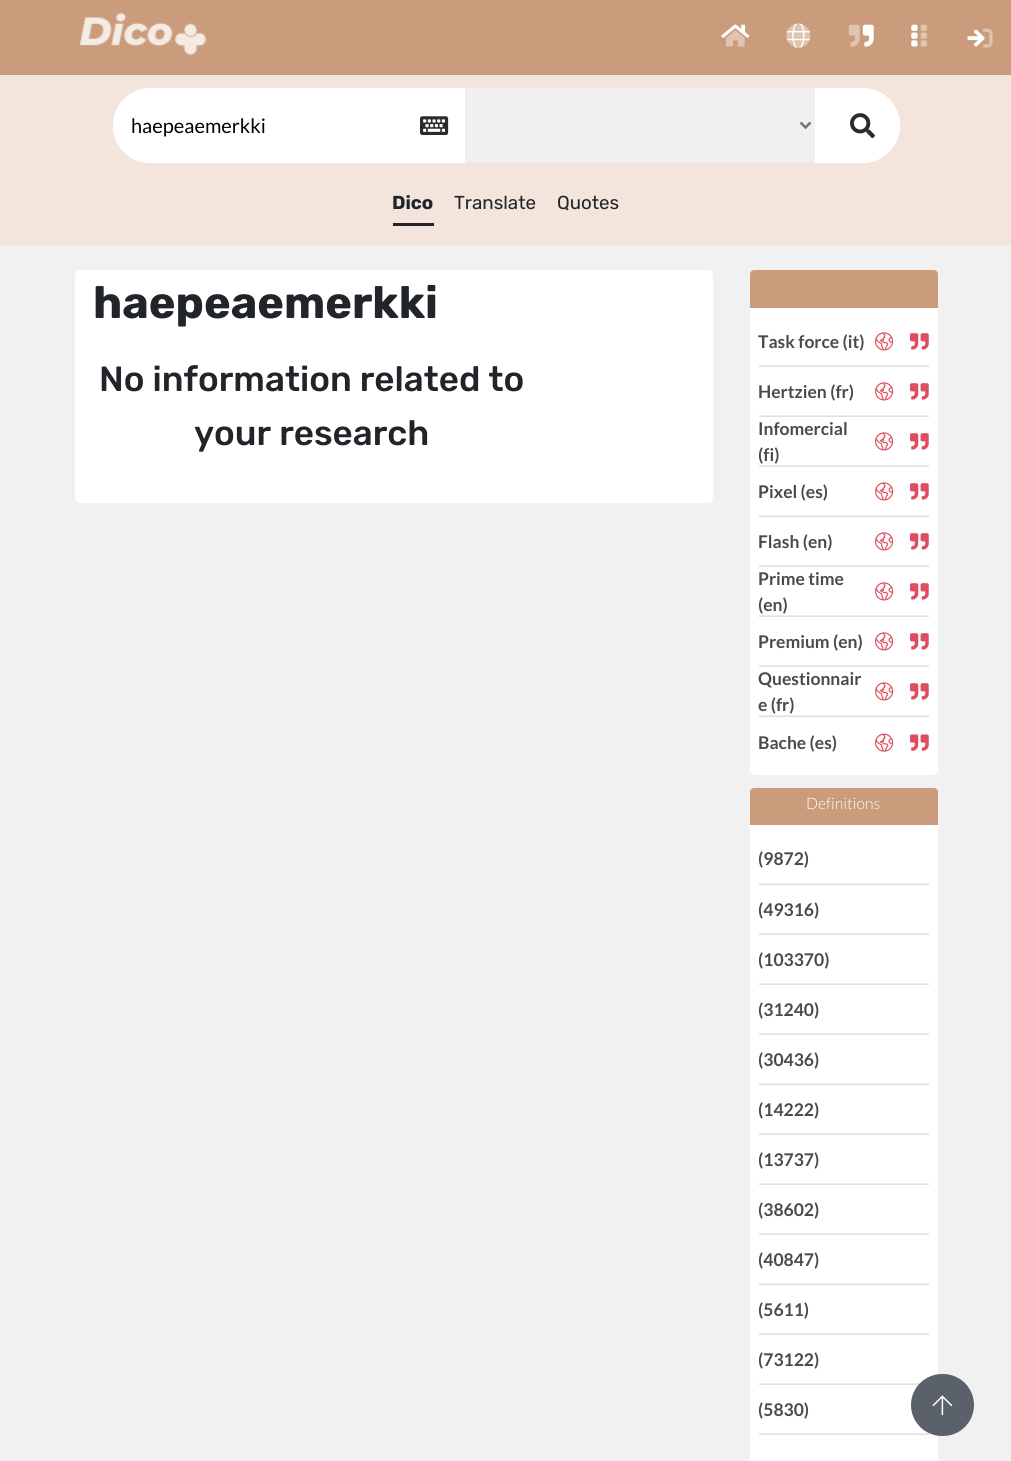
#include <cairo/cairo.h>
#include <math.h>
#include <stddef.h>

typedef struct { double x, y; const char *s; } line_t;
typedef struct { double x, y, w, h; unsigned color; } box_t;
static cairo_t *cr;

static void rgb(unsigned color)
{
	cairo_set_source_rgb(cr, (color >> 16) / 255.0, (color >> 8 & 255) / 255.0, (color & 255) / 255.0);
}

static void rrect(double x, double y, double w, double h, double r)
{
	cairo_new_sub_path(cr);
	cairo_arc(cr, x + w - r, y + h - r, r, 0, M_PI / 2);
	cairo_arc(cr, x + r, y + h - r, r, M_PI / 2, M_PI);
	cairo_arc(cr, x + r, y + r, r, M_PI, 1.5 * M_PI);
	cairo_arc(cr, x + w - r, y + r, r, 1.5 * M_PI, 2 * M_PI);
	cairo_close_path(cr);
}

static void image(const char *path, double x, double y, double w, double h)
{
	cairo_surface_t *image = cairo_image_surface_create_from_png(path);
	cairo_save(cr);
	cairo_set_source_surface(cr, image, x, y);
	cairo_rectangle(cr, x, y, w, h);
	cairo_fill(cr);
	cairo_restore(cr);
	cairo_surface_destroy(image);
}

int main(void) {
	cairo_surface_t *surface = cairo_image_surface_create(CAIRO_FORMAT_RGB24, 1011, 1461);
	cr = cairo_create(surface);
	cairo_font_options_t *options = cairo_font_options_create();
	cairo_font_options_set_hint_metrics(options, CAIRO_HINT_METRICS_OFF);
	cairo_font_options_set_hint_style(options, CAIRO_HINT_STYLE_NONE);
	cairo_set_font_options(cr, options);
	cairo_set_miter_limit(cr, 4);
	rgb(0xf1f1f1);
	cairo_paint(cr);
	rgb(0xca9c7b);
	cairo_rectangle(cr, 0, 0, 1011, 75);
	cairo_fill(cr);
	image("img/1.png", 79, 12, 128, 44);
	image("img/2.png", 721, 24, 29, 14);
	image("img/3.png", 726, 30, 19, 17);
	image("img/4.png", 786, 23, 24, 25);
	image("img/5.png", 786, 23, 25, 25);
	image("img/6.png", 848, 24, 12, 23);
	image("img/7.png", 862, 24, 12, 23);
	image("img/8.png", 911, 24, 7, 23);
	image("img/9.png", 920, 24, 7, 23);
	image("img/10.png", 967, 29, 18, 18);
	image("img/11.png", 983, 28, 10, 20);
	rgb(0xf3e5dc);
	cairo_rectangle(cr, 0, 75, 1011, 170);
	cairo_fill(cr);
	rgb(0xffffff);
	rrect(113, 88, 787, 75, 37.5);
	cairo_fill(cr);
	cairo_new_path(cr);
	cairo_move_to(cr, 150, 89);
	cairo_line_to(cr, 455, 89);
	cairo_curve_to(cr, 459.5, 89, 463, 92.5, 463, 97);
	cairo_line_to(cr, 463, 155);
	cairo_curve_to(cr, 463, 159.5, 459.5, 163, 455, 163);
	cairo_line_to(cr, 150, 163);
	cairo_curve_to(cr, 129.5, 163, 113, 146.5, 113, 126);
	cairo_curve_to(cr, 113, 105.5, 129.5, 89, 150, 89);
	cairo_close_path(cr);
	cairo_fill(cr);
	image("img/12.png", 420, 116, 29, 19);
	rgb(0xefefef);
	cairo_rectangle(cr, 466, 88, 349, 75);
	cairo_fill(cr);
	rgb(0xececec);
	cairo_rectangle(cr, 465, 88, 1, 75);
	cairo_fill(cr);
	cairo_new_path(cr);
	cairo_move_to(cr, 800.5, 122.5);
	cairo_line_to(cr, 805.5, 127.5);
	cairo_line_to(cr, 810.5, 122.5);
	rgb(0x757575);
	cairo_set_line_width(cr, 2.5);
	cairo_stroke(cr);
	rgb(0xffffff);
	cairo_arc(cr, 862.5, 125.5, 37.5, 0, 2 * M_PI);
	cairo_fill(cr);
	image("img/13.png", 850, 113, 25, 26);
	rgb(0x212529);
	cairo_rectangle(cr, 393, 223, 41, 3);
	cairo_fill(cr);
	rgb(0xffffff);
	rrect(75, 270, 638, 233, 5);
	cairo_fill(cr);
	rrect(750, 270, 188, 505, 5);
	cairo_fill(cr);
	rgb(0xca9c7b);
	cairo_new_path(cr);
	cairo_move_to(cr, 754, 270);
	cairo_line_to(cr, 934, 270);
	cairo_curve_to(cr, 936, 270, 938, 272, 938, 274);
	cairo_line_to(cr, 938, 308);
	cairo_line_to(cr, 750, 308);
	cairo_line_to(cr, 750, 274);
	cairo_curve_to(cr, 750, 272, 752, 270, 754, 270);
	cairo_close_path(cr);
	cairo_fill(cr);
	rgb(0xececec);
	cairo_rectangle(cr, 759, 365, 170, 1);
	cairo_fill(cr);
	image("img/14.png", 875, 332, 19, 19);
	image("img/15.png", 910, 333, 19, 17);
	rgb(0xdfdfdf);
	cairo_rectangle(cr, 759, 366, 170, 1);
	cairo_fill(cr);
	rgb(0xececec);
	cairo_rectangle(cr, 759, 415, 170, 1);
	cairo_fill(cr);
	image("img/14.png", 875, 382, 19, 19);
	image("img/15.png", 910, 383, 19, 17);
	rgb(0xdfdfdf);
	cairo_rectangle(cr, 759, 416, 170, 1);
	cairo_fill(cr);
	rgb(0xececec);
	cairo_rectangle(cr, 759, 465, 170, 1);
	cairo_fill(cr);
	image("img/14.png", 875, 432, 19, 19);
	image("img/15.png", 910, 433, 19, 17);
	rgb(0xdfdfdf);
	cairo_rectangle(cr, 759, 466, 170, 1);
	cairo_fill(cr);
	rgb(0xececec);
	cairo_rectangle(cr, 759, 515, 170, 1);
	cairo_fill(cr);
	image("img/14.png", 875, 482, 19, 19);
	image("img/15.png", 910, 483, 19, 17);
	rgb(0xdfdfdf);
	cairo_rectangle(cr, 759, 516, 170, 1);
	cairo_fill(cr);
	rgb(0xececec);
	cairo_rectangle(cr, 759, 565, 170, 1);
	cairo_fill(cr);
	image("img/14.png", 875, 532, 19, 19);
	image("img/15.png", 910, 533, 19, 17);
	rgb(0xdfdfdf);
	cairo_rectangle(cr, 759, 566, 170, 1);
	cairo_fill(cr);
	rgb(0xececec);
	cairo_rectangle(cr, 759, 615, 170, 1);
	cairo_fill(cr);
	image("img/14.png", 875, 582, 19, 19);
	image("img/15.png", 910, 583, 19, 17);
	rgb(0xdfdfdf);
	cairo_rectangle(cr, 759, 616, 170, 1);
	cairo_fill(cr);
	rgb(0xececec);
	cairo_rectangle(cr, 759, 665, 170, 1);
	cairo_fill(cr);
	image("img/14.png", 875, 632, 19, 19);
	image("img/15.png", 910, 633, 19, 17);
	rgb(0xdfdfdf);
	cairo_rectangle(cr, 759, 666, 170, 1);
	cairo_fill(cr);
	rgb(0xececec);
	cairo_rectangle(cr, 759, 715, 170, 1);
	cairo_fill(cr);
	image("img/14.png", 875, 682, 19, 19);
	image("img/15.png", 910, 683, 19, 17);
	rgb(0xdfdfdf);
	cairo_rectangle(cr, 759, 716, 170, 1);
	cairo_fill(cr);
	image("img/16.png", 875, 733, 19, 19);
	image("img/17.png", 910, 734, 19, 17);
	rgb(0xffffff);
	rrect(750, 788, 188, 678, 5);
	cairo_fill(cr);
	rgb(0xca9c7b);
	cairo_new_path(cr);
	cairo_move_to(cr, 754, 788);
	cairo_line_to(cr, 934, 788);
	cairo_curve_to(cr, 936, 788, 938, 790, 938, 792);
	cairo_line_to(cr, 938, 825);
	cairo_line_to(cr, 750, 825);
	cairo_line_to(cr, 750, 792);
	cairo_curve_to(cr, 750, 790, 752, 788, 754, 788);
	cairo_close_path(cr);
	cairo_fill(cr);
	{
		static const box_t items[] = {
			{759, 883, 170, 1, 0xececec},
			{759, 884, 170, 1, 0xdfdfdf},
			{759, 933, 170, 1, 0xececec},
			{759, 934, 170, 1, 0xdfdfdf},
			{759, 983, 170, 1, 0xececec},
			{759, 984, 170, 1, 0xdfdfdf},
			{759, 1033, 170, 1, 0xececec},
			{759, 1034, 170, 1, 0xdfdfdf},
			{759, 1083, 170, 1, 0xececec},
			{759, 1084, 170, 1, 0xdfdfdf},
			{759, 1133, 170, 1, 0xececec},
			{759, 1134, 170, 1, 0xdfdfdf},
			{759, 1183, 170, 1, 0xececec},
			{759, 1184, 170, 1, 0xdfdfdf},
			{759, 1233, 170, 1, 0xececec},
			{759, 1234, 170, 1, 0xdfdfdf},
			{759, 1283, 170, 1, 0xececec},
			{759, 1284, 170, 1, 0xdfdfdf},
			{759, 1333, 170, 1, 0xececec},
			{759, 1334, 170, 1, 0xdfdfdf},
			{759, 1383, 170, 1, 0xececec},
			{759, 1384, 161, 1, 0xdfdfdf},
			{759, 1433, 170, 1, 0xececec},
			{759, 1434, 170, 1, 0xdfdfdf},
		};
		for (size_t i = 0; i < sizeof items / sizeof *items; i++) {
			rgb(items[i].color);
			cairo_rectangle(cr, items[i].x, items[i].y, items[i].w, items[i].h);
			cairo_fill(cr);
		}
	}
	rgb(0x5a616b);
	rrect(911, 1374, 63, 62, 31);
	cairo_fill(cr);
	image("img/18.png", 932, 1395, 21, 21);
	cairo_select_font_face(cr, "Lato", CAIRO_FONT_SLANT_NORMAL, CAIRO_FONT_WEIGHT_NORMAL);
	cairo_set_font_size(cr, 20);
	rgb(0x000000);
	cairo_move_to(cr, 131, 133);
	cairo_show_text(cr, "haepeaemerkki");
	cairo_select_font_face(cr, "Rubik", CAIRO_FONT_SLANT_NORMAL, CAIRO_FONT_WEIGHT_BOLD);
	cairo_set_font_size(cr, 18.75);
	rgb(0x212529);
	cairo_move_to(cr, 392, 209);
	cairo_show_text(cr, "Dico");
	cairo_select_font_face(cr, "Rubik", CAIRO_FONT_SLANT_NORMAL, CAIRO_FONT_WEIGHT_NORMAL);
	cairo_move_to(cr, 454, 209);
	cairo_show_text(cr, "Translate");
	cairo_move_to(cr, 557, 209);
	cairo_show_text(cr, "Quotes");
	cairo_select_font_face(cr, "Rubik", CAIRO_FONT_SLANT_NORMAL, CAIRO_FONT_WEIGHT_BOLD);
	cairo_set_font_size(cr, 45);
	cairo_move_to(cr, 93, 318);
	cairo_show_text(cr, "haepeaemerkki");
	cairo_select_font_face(cr, "Rubik Medium", CAIRO_FONT_SLANT_NORMAL, CAIRO_FONT_WEIGHT_NORMAL);
	cairo_set_font_size(cr, 35);
	cairo_move_to(cr, 99, 391);
	cairo_show_text(cr, "No information related to");
	cairo_move_to(cr, 194, 445);
	cairo_show_text(cr, "your research");
	cairo_select_font_face(cr, "Lato", CAIRO_FONT_SLANT_NORMAL, CAIRO_FONT_WEIGHT_BOLD);
	cairo_set_font_size(cr, 17.5);
	rgb(0x4a4a4a);
	{
		static const line_t items[] = {
			{758, 348, "Task force (it)"},
			{758, 398, "Hertzien (fr)"},
			{758, 435, "Infomercial"},
			{758, 461, "(fi)"},
			{758, 498, "Pixel (es)"},
			{758, 548, "Flash (en)"},
			{758, 585, "Prime time"},
			{758, 611, "(en)"},
			{758, 648, "Premium (en)"},
			{758, 685, "Questionnair"},
			{758, 711, "e (fr)"},
			{758, 749, "Bache (es)"},
		};
		for (size_t i = 0; i < sizeof items / sizeof *items; i++) {
			cairo_move_to(cr, items[i].x, items[i].y);
			cairo_show_text(cr, items[i].s);
		}
	}
	cairo_select_font_face(cr, "Lato Light", CAIRO_FONT_SLANT_NORMAL, CAIRO_FONT_WEIGHT_NORMAL);
	cairo_set_font_size(cr, 15.75);
	rgb(0xffffff);
	cairo_move_to(cr, 806, 809);
	cairo_show_text(cr, "Definitions");
	cairo_select_font_face(cr, "Lato", CAIRO_FONT_SLANT_NORMAL, CAIRO_FONT_WEIGHT_BOLD);
	cairo_set_font_size(cr, 17.5);
	rgb(0x4a4a4a);
	{
		static const line_t items[] = {
			{758, 865, "(9872)"},
			{758, 916, "(49316)"},
			{758, 966, "(103370)"},
			{758, 1016, "(31240)"},
			{758, 1066, "(30436)"},
			{758, 1116, "(14222)"},
			{758, 1166, "(13737)"},
			{758, 1216, "(38602)"},
			{758, 1266, "(40847)"},
			{758, 1316, "(5611)"},
			{758, 1366, "(73122)"},
			{758, 1416, "(5830)"},
		};
		for (size_t i = 0; i < sizeof items / sizeof *items; i++) {
			cairo_move_to(cr, items[i].x, items[i].y);
			cairo_show_text(cr, items[i].s);
		}
	}
	cairo_surface_write_to_png(surface, "page.png");
	cairo_font_options_destroy(options);
	cairo_destroy(cr);
	cairo_surface_destroy(surface);
	return 0;
}
